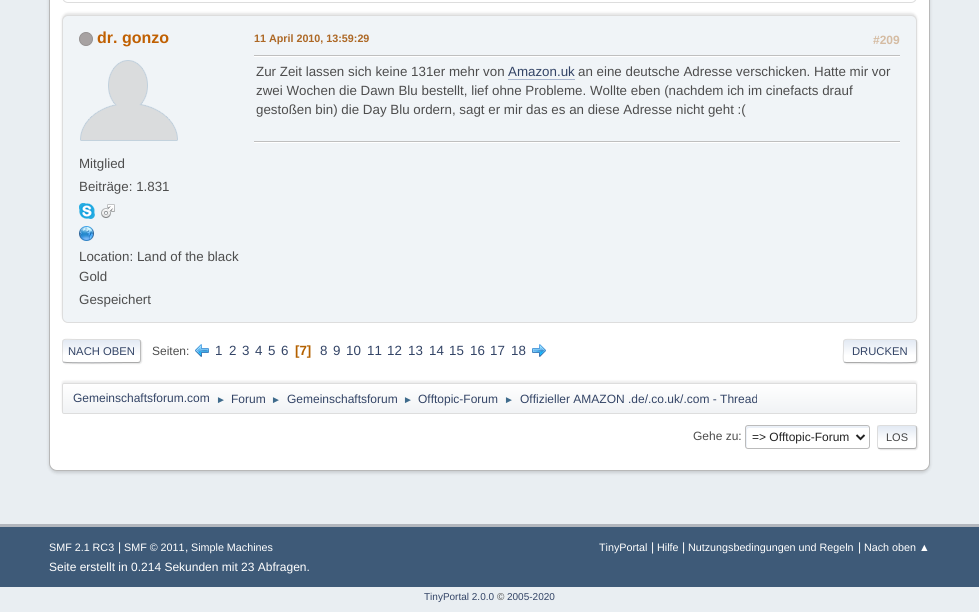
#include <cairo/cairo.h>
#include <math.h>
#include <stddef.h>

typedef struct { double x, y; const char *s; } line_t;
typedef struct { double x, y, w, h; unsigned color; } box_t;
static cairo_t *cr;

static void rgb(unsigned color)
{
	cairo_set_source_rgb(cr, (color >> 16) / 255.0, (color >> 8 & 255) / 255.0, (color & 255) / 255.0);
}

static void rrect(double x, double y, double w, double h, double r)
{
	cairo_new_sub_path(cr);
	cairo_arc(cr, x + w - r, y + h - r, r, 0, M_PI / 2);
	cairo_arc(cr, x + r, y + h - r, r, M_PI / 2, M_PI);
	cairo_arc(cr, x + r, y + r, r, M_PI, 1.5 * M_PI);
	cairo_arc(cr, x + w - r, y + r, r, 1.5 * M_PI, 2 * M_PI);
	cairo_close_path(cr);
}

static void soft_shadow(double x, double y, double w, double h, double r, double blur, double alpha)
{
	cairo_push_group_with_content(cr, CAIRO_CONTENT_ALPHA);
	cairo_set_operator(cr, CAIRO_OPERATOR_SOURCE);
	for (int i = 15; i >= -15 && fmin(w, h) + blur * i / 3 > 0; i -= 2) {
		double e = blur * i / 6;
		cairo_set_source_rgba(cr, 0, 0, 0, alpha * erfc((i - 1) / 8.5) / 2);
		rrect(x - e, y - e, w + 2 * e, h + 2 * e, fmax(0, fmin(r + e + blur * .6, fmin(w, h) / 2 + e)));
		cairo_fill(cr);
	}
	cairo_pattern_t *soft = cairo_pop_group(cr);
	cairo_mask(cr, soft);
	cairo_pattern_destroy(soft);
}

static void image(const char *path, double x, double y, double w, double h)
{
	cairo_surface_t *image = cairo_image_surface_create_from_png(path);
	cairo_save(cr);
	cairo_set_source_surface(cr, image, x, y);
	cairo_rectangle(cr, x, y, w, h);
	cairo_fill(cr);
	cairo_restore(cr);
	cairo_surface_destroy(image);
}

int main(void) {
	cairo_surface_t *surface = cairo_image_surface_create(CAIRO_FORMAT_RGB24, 979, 612);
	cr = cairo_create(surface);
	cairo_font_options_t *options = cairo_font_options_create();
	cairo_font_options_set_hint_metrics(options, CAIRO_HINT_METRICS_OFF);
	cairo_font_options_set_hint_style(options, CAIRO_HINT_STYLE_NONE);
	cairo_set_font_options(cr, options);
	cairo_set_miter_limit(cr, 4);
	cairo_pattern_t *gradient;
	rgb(0xe9eef2);
	cairo_paint(cr);
	rgb(0x000000);
	soft_shadow(49, -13, 881, 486, 8, 1.5, 0.14);
	rgb(0xffffff);
	rrect(49.5, -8.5, 880, 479, 7.5);
	cairo_fill_preserve(cr);
	rgb(0xb8b8b8);
	cairo_set_line_width(cr, 1);
	cairo_stroke(cr);
	rrect(62.5, -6.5, 854, 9, 5.5);
	rgb(0xdddddd);
	cairo_stroke(cr);
	rgb(0x000000);
	soft_shadow(62, 13, 855, 308, 6, 1, 0.1);
	rgb(0xf0f4f7);
	rrect(62.5, 15.5, 854, 307, 5.5);
	cairo_fill_preserve(cr);
	rgb(0xdddddd);
	cairo_stroke(cr);
	rgb(0xa7a2a2);
	cairo_arc(cr, 86, 39, 6.5, 0, 2 * M_PI);
	cairo_fill_preserve(cr);
	rgb(0x969292);
	cairo_stroke(cr);
	image("img/1.png", 80, 60, 98, 81);
	image("img/2.png", 79, 203, 16, 16);
	image("img/3.png", 101, 204, 14, 14);
	image("img/4.png", 79, 226, 15, 15);
	{
		static const box_t items[] = {
			{254, 56, 646, 1, 0xffffff},
			{254, 55, 646, 1, 0xbfbfbf},
			{508, 79, 67, 1, 0xa8b6cf},
			{254, 142, 646, 1, 0xffffff},
			{254, 141, 646, 1, 0xbfbfbf},
		};
		for (size_t i = 0; i < sizeof items / sizeof *items; i++) {
			rgb(items[i].color);
			cairo_rectangle(cr, items[i].x, items[i].y, items[i].w, items[i].h);
			cairo_fill(cr);
		}
	}
	rgb(0x000000);
	soft_shadow(63, 340, 79, 24, 3, 0.5, 0.1);
	cairo_save(cr);
	rrect(62, 339, 79, 24, 3);
	cairo_clip(cr);
	gradient = cairo_pattern_create_linear(102, 340, 102, 362);
	cairo_pattern_add_color_stop_rgba(gradient, 0, 0.886, 0.914, 0.953, 1);
	cairo_pattern_add_color_stop_rgba(gradient, 0.7, 1, 1, 1, 1);
	cairo_set_source(cr, gradient);
	cairo_pattern_destroy(gradient);
	cairo_rectangle(cr, 62, 340, 79, 22);
	cairo_fill(cr);
	gradient = cairo_pattern_create_linear(102, 362, 102, 384);
	cairo_pattern_add_color_stop_rgba(gradient, 0, 0.886, 0.914, 0.953, 1);
	cairo_pattern_add_color_stop_rgba(gradient, 0.7, 1, 1, 1, 1);
	cairo_set_source(cr, gradient);
	cairo_pattern_destroy(gradient);
	cairo_rectangle(cr, 62, 362, 79, 1);
	cairo_fill(cr);
	cairo_restore(cr);
	cairo_new_path(cr);
	cairo_move_to(cr, 140, 340);
	cairo_curve_to(cr, 140, 340.5, 140.5, 341.5, 140.5, 342);
	cairo_line_to(cr, 140.5, 360);
	cairo_curve_to(cr, 140.5, 360.5, 140, 361.5, 140, 362);
	rgb(0xbbbbbb);
	cairo_stroke(cr);
	cairo_new_path(cr);
	cairo_move_to(cr, 140, 362);
	cairo_line_to(cr, 138, 362.5);
	cairo_line_to(cr, 126, 362.5);
	cairo_curve_to(cr, 119, 362.5, 65.5, 363.5, 63.5, 362);
	cairo_line_to(cr, 63, 362);
	rgb(0xaaaaaa);
	cairo_stroke(cr);
	cairo_save(cr);
	cairo_rectangle(cr, 62, 327, 855, 48);
	cairo_clip(cr);
	cairo_new_path(cr);
	cairo_move_to(cr, 63, 362);
	cairo_curve_to(cr, 61.5, 360, 62.5, 353, 62.5, 351);
	cairo_curve_to(cr, 62.5, 336.5, 61, 339.5, 77, 339.5);
	cairo_line_to(cr, 138, 339.5);
	cairo_line_to(cr, 140, 340);
	rgb(0xdddddd);
	cairo_stroke(cr);
	cairo_restore(cr);
	image("img/5.png", 195, 344, 14, 13);
	image("img/6.png", 532, 344, 14, 13);
	rgb(0x000000);
	soft_shadow(844, 340, 74, 24, 3, 0.5, 0.1);
	cairo_save(cr);
	rrect(843, 339, 74, 24, 3);
	cairo_clip(cr);
	gradient = cairo_pattern_create_linear(880, 340, 880, 362);
	cairo_pattern_add_color_stop_rgba(gradient, 0, 0.886, 0.914, 0.953, 1);
	cairo_pattern_add_color_stop_rgba(gradient, 0.7, 1, 1, 1, 1);
	cairo_set_source(cr, gradient);
	cairo_pattern_destroy(gradient);
	cairo_rectangle(cr, 843, 340, 74, 22);
	cairo_fill(cr);
	gradient = cairo_pattern_create_linear(880, 362, 880, 384);
	cairo_pattern_add_color_stop_rgba(gradient, 0, 0.886, 0.914, 0.953, 1);
	cairo_pattern_add_color_stop_rgba(gradient, 0.7, 1, 1, 1, 1);
	cairo_set_source(cr, gradient);
	cairo_pattern_destroy(gradient);
	cairo_rectangle(cr, 843, 362, 74, 1);
	cairo_fill(cr);
	cairo_restore(cr);
	cairo_new_path(cr);
	cairo_move_to(cr, 916, 340);
	cairo_curve_to(cr, 916, 340.5, 916.5, 341.5, 916.5, 342);
	cairo_line_to(cr, 916.5, 360);
	cairo_curve_to(cr, 916.5, 360.5, 916, 361.5, 916, 362);
	rgb(0xbbbbbb);
	cairo_stroke(cr);
	cairo_new_path(cr);
	cairo_move_to(cr, 916, 362);
	cairo_line_to(cr, 915.5, 362);
	cairo_curve_to(cr, 913.5, 363.5, 864, 362.5, 857.5, 362.5);
	cairo_line_to(cr, 846, 362.5);
	cairo_line_to(cr, 844, 362);
	rgb(0xaaaaaa);
	cairo_stroke(cr);
	cairo_new_path(cr);
	cairo_move_to(cr, 844, 362);
	cairo_curve_to(cr, 842.5, 360, 843.5, 353, 843.5, 351);
	cairo_curve_to(cr, 843.5, 337, 841.5, 339.5, 857.5, 339.5);
	cairo_line_to(cr, 914, 339.5);
	cairo_line_to(cr, 916, 340);
	rgb(0xdddddd);
	cairo_stroke(cr);
	rgb(0x000000);
	soft_shadow(62, 381, 855, 31, 2, 1, 0.08);
	cairo_save(cr);
	rrect(62, 383, 855, 31, 2);
	cairo_clip(cr);
	gradient = cairo_pattern_create_linear(490, 384, 490, 413);
	cairo_pattern_add_color_stop_rgba(gradient, 0, 1, 1, 1, 1);
	cairo_pattern_add_color_stop_rgba(gradient, 0.95, 0.945, 0.953, 0.961, 1);
	cairo_set_source(cr, gradient);
	cairo_pattern_destroy(gradient);
	cairo_rectangle(cr, 62, 384, 855, 29);
	cairo_fill(cr);
	cairo_restore(cr);
	rrect(62.5, 383.5, 854, 30, 1.5);
	rgb(0xdddddd);
	cairo_stroke(cr);
	rgb(0xecf1f8);
	cairo_new_path(cr);
	cairo_move_to(cr, 749, 428);
	cairo_line_to(cr, 869, 428);
	cairo_curve_to(cr, 869, 427, 868, 426, 867, 426);
	cairo_line_to(cr, 748, 426);
	cairo_curve_to(cr, 747, 426, 746, 427, 746, 428);
	cairo_line_to(cr, 746, 446);
	cairo_curve_to(cr, 746, 447, 746, 447, 747, 448);
	cairo_line_to(cr, 747, 430);
	cairo_curve_to(cr, 747, 429, 748, 428, 749, 428);
	cairo_close_path(cr);
	cairo_fill(cr);
	rrect(745.5, 425.5, 124, 23, 2.5);
	rgb(0xbbbbbb);
	cairo_stroke(cr);
	cairo_new_path(cr);
	cairo_move_to(cr, 856.5, 435);
	cairo_line_to(cr, 860.5, 439);
	cairo_line_to(cr, 864.5, 435);
	rgb(0x222222);
	cairo_set_line_width(cr, 2);
	cairo_stroke(cr);
	rgb(0x000000);
	soft_shadow(878, 426, 40, 24, 3, 0.5, 0.1);
	cairo_save(cr);
	rrect(877, 425, 40, 24, 3);
	cairo_clip(cr);
	gradient = cairo_pattern_create_linear(897, 426, 897, 448);
	cairo_pattern_add_color_stop_rgba(gradient, 0, 0.886, 0.914, 0.953, 1);
	cairo_pattern_add_color_stop_rgba(gradient, 0.7, 1, 1, 1, 1);
	cairo_set_source(cr, gradient);
	cairo_pattern_destroy(gradient);
	cairo_rectangle(cr, 877, 426, 40, 22);
	cairo_fill(cr);
	cairo_restore(cr);
	cairo_new_path(cr);
	cairo_move_to(cr, 916, 426);
	cairo_curve_to(cr, 916, 426.5, 916.5, 427.5, 916.5, 428);
	cairo_line_to(cr, 916.5, 446);
	cairo_curve_to(cr, 916.5, 446.5, 916, 447.5, 916, 448);
	rgb(0xbbbbbb);
	cairo_set_line_width(cr, 1);
	cairo_stroke(cr);
	cairo_new_path(cr);
	cairo_move_to(cr, 916, 448);
	cairo_line_to(cr, 914, 448.5);
	cairo_line_to(cr, 880, 448.5);
	cairo_line_to(cr, 878, 448);
	rgb(0xaaaaaa);
	cairo_stroke(cr);
	cairo_new_path(cr);
	cairo_move_to(cr, 878, 448);
	cairo_curve_to(cr, 878, 447.5, 877.5, 446.5, 877.5, 446);
	cairo_line_to(cr, 877.5, 428);
	cairo_curve_to(cr, 877.5, 427.5, 878, 426.5, 878, 426);
	cairo_curve_to(cr, 878.5, 426, 879.5, 425.5, 880, 425.5);
	cairo_line_to(cr, 914, 425.5);
	cairo_curve_to(cr, 914.5, 425.5, 915.5, 426, 916, 426);
	rgb(0xdddddd);
	cairo_stroke(cr);
	rgb(0x3e5a78);
	cairo_rectangle(cr, 0, 527, 979, 60);
	cairo_fill(cr);
	rgb(0xb2b6bd);
	cairo_rectangle(cr, 0, 524, 979, 3);
	cairo_fill(cr);
	cairo_select_font_face(cr, "Liberation Sans", CAIRO_FONT_SLANT_NORMAL, CAIRO_FONT_WEIGHT_BOLD);
	cairo_set_font_size(cr, 16);
	rgb(0xc06002);
	cairo_move_to(cr, 97, 43);
	cairo_show_text(cr, "dr. gonzo");
	cairo_select_font_face(cr, "Liberation Sans", CAIRO_FONT_SLANT_NORMAL, CAIRO_FONT_WEIGHT_NORMAL);
	cairo_set_font_size(cr, 13.35);
	rgb(0x4d4d4d);
	{
		static const line_t items[] = {
			{79, 168, "Mitglied"},
			{79, 191, "Beiträge: 1.831"},
			{79, 261, "Location: Land of the black"},
			{79, 281, "Gold"},
			{79, 304, "Gespeichert"},
		};
		for (size_t i = 0; i < sizeof items / sizeof *items; i++) {
			cairo_move_to(cr, items[i].x, items[i].y);
			cairo_show_text(cr, items[i].s);
		}
	}
	cairo_select_font_face(cr, "Liberation Sans", CAIRO_FONT_SLANT_NORMAL, CAIRO_FONT_WEIGHT_BOLD);
	cairo_set_font_size(cr, 10.75);
	rgb(0xad6825);
	cairo_move_to(cr, 254, 42);
	cairo_show_text(cr, "11 April 2010, 13:59:29");
	cairo_set_font_size(cr, 12);
	rgb(0xd5bca3);
	cairo_move_to(cr, 873, 44);
	cairo_show_text(cr, "#209");
	cairo_select_font_face(cr, "Liberation Sans", CAIRO_FONT_SLANT_NORMAL, CAIRO_FONT_WEIGHT_NORMAL);
	cairo_set_font_size(cr, 13.35);
	rgb(0x4d4d4d);
	cairo_move_to(cr, 256, 76);
	cairo_show_text(cr, "Zur Zeit lassen sich keine 131er mehr von");
	rgb(0x334466);
	cairo_move_to(cr, 508, 76);
	cairo_show_text(cr, "Amazon.uk");
	rgb(0x4d4d4d);
	{
		static const line_t items[] = {
			{578, 76, "an eine deutsche Adresse verschicken. Hatte mir vor"},
			{256, 95, "zwei Wochen die Dawn Blu bestellt, lief ohne Probleme. Wollte eben (nachdem ich im cinefacts drauf"},
			{256, 114, "gestoßen bin) die Day Blu ordern, sagt er mir das es an diese Adresse nicht geht :("},
		};
		for (size_t i = 0; i < sizeof items / sizeof *items; i++) {
			cairo_move_to(cr, items[i].x, items[i].y);
			cairo_show_text(cr, items[i].s);
		}
	}
	cairo_set_font_size(cr, 11.25);
	rgb(0x334466);
	cairo_move_to(cr, 68, 355);
	cairo_show_text(cr, "NACH OBEN");
	cairo_set_font_size(cr, 12);
	rgb(0x4d4d4d);
	cairo_move_to(cr, 152, 355);
	cairo_show_text(cr, "Seiten:");
	cairo_set_font_size(cr, 13.35);
	rgb(0x334466);
	{
		static const line_t items[] = {
			{215, 355, "1"},
			{229, 355, "2"},
			{242, 355, "3"},
			{255, 355, "4"},
			{268, 355, "5"},
			{281, 355, "6"},
		};
		for (size_t i = 0; i < sizeof items / sizeof *items; i++) {
			cairo_move_to(cr, items[i].x, items[i].y);
			cairo_show_text(cr, items[i].s);
		}
	}
	cairo_select_font_face(cr, "Liberation Sans", CAIRO_FONT_SLANT_NORMAL, CAIRO_FONT_WEIGHT_BOLD);
	rgb(0xb46100);
	cairo_move_to(cr, 295, 355);
	cairo_show_text(cr, "[7]");
	cairo_select_font_face(cr, "Liberation Sans", CAIRO_FONT_SLANT_NORMAL, CAIRO_FONT_WEIGHT_NORMAL);
	rgb(0x334466);
	{
		static const line_t items[] = {
			{320, 355, "8"},
			{333, 355, "9"},
			{346, 355, "10"},
			{367, 355, "11"},
			{387, 355, "12"},
			{408, 355, "13"},
			{429, 355, "14"},
			{449, 355, "15"},
			{470, 355, "16"},
			{490, 355, "17"},
			{511, 355, "18"},
		};
		for (size_t i = 0; i < sizeof items / sizeof *items; i++) {
			cairo_move_to(cr, items[i].x, items[i].y);
			cairo_show_text(cr, items[i].s);
		}
	}
	cairo_set_font_size(cr, 11.25);
	cairo_move_to(cr, 852, 355);
	cairo_show_text(cr, "DRUCKEN");
	cairo_set_font_size(cr, 12);
	cairo_move_to(cr, 73, 402);
	cairo_show_text(cr, "Gemeinschaftsforum.com");
	cairo_set_font_size(cr, 10);
	rgb(0x3f6b8c);
	cairo_move_to(cr, 216, 403);
	cairo_show_text(cr, "►");
	cairo_set_font_size(cr, 12);
	rgb(0x334466);
	cairo_move_to(cr, 231, 403);
	cairo_show_text(cr, "Forum");
	cairo_set_font_size(cr, 10);
	rgb(0x3f6b8c);
	cairo_move_to(cr, 271, 403);
	cairo_show_text(cr, "►");
	cairo_set_font_size(cr, 12);
	rgb(0x334466);
	cairo_move_to(cr, 287, 403);
	cairo_show_text(cr, "Gemeinschaftsforum");
	cairo_set_font_size(cr, 10);
	rgb(0x3f6b8c);
	cairo_move_to(cr, 403, 403);
	cairo_show_text(cr, "►");
	cairo_set_font_size(cr, 12);
	rgb(0x334466);
	cairo_move_to(cr, 418, 403);
	cairo_show_text(cr, "Offtopic-Forum");
	cairo_set_font_size(cr, 10);
	rgb(0x3f6b8c);
	cairo_move_to(cr, 504, 403);
	cairo_show_text(cr, "►");
	cairo_set_font_size(cr, 12);
	rgb(0x334466);
	cairo_move_to(cr, 520, 403);
	cairo_show_text(cr, "Offizieller AMAZON .de/.co.uk/.com - Thread");
	rgb(0x4d4d4d);
	cairo_move_to(cr, 693, 440);
	cairo_show_text(cr, "Gehe zu:");
	rgb(0x222222);
	cairo_move_to(cr, 752, 441);
	cairo_show_text(cr, "=> Offtopic-Forum");
	cairo_set_font_size(cr, 11);
	rgb(0x444444);
	cairo_move_to(cr, 886, 441);
	cairo_show_text(cr, "LOS");
	cairo_set_font_size(cr, 10.75);
	rgb(0xffffff);
	cairo_move_to(cr, 49, 551);
	cairo_show_text(cr, "SMF 2.1 RC3");
	cairo_set_font_size(cr, 12);
	cairo_move_to(cr, 118, 551);
	cairo_show_text(cr, "|");
	cairo_set_font_size(cr, 10.75);
	cairo_move_to(cr, 124, 551);
	cairo_show_text(cr, "SMF © 2011");
	cairo_set_font_size(cr, 12);
	cairo_move_to(cr, 185, 551);
	cairo_show_text(cr, ",");
	cairo_set_font_size(cr, 10.75);
	cairo_move_to(cr, 191, 551);
	cairo_show_text(cr, "Simple Machines");
	cairo_move_to(cr, 599, 551);
	cairo_show_text(cr, "TinyPortal");
	cairo_set_font_size(cr, 12);
	cairo_move_to(cr, 651, 551);
	cairo_show_text(cr, "|");
	cairo_set_font_size(cr, 10.75);
	cairo_move_to(cr, 657, 551);
	cairo_show_text(cr, "Hilfe");
	cairo_set_font_size(cr, 12);
	cairo_move_to(cr, 682, 551);
	cairo_show_text(cr, "|");
	cairo_set_font_size(cr, 10.75);
	cairo_move_to(cr, 688, 551);
	cairo_show_text(cr, "Nutzungsbedingungen und Regeln");
	cairo_set_font_size(cr, 12);
	cairo_move_to(cr, 858, 551);
	cairo_show_text(cr, "|");
	cairo_set_font_size(cr, 10.75);
	cairo_move_to(cr, 864, 551);
	cairo_show_text(cr, "Nach oben ▲");
	cairo_set_font_size(cr, 12);
	cairo_move_to(cr, 49, 571);
	cairo_show_text(cr, "Seite erstellt in 0.214 Sekunden mit 23 Abfragen.");
	cairo_set_font_size(cr, 10);
	rgb(0x334466);
	cairo_move_to(cr, 424, 600);
	cairo_show_text(cr, "TinyPortal 2.0.0");
	rgb(0x4d4d4d);
	cairo_move_to(cr, 497, 600);
	cairo_show_text(cr, "©");
	rgb(0x334466);
	cairo_move_to(cr, 507, 600);
	cairo_show_text(cr, "2005-2020");
	cairo_surface_write_to_png(surface, "page.png");
	cairo_font_options_destroy(options);
	cairo_destroy(cr);
	cairo_surface_destroy(surface);
	return 0;
}
